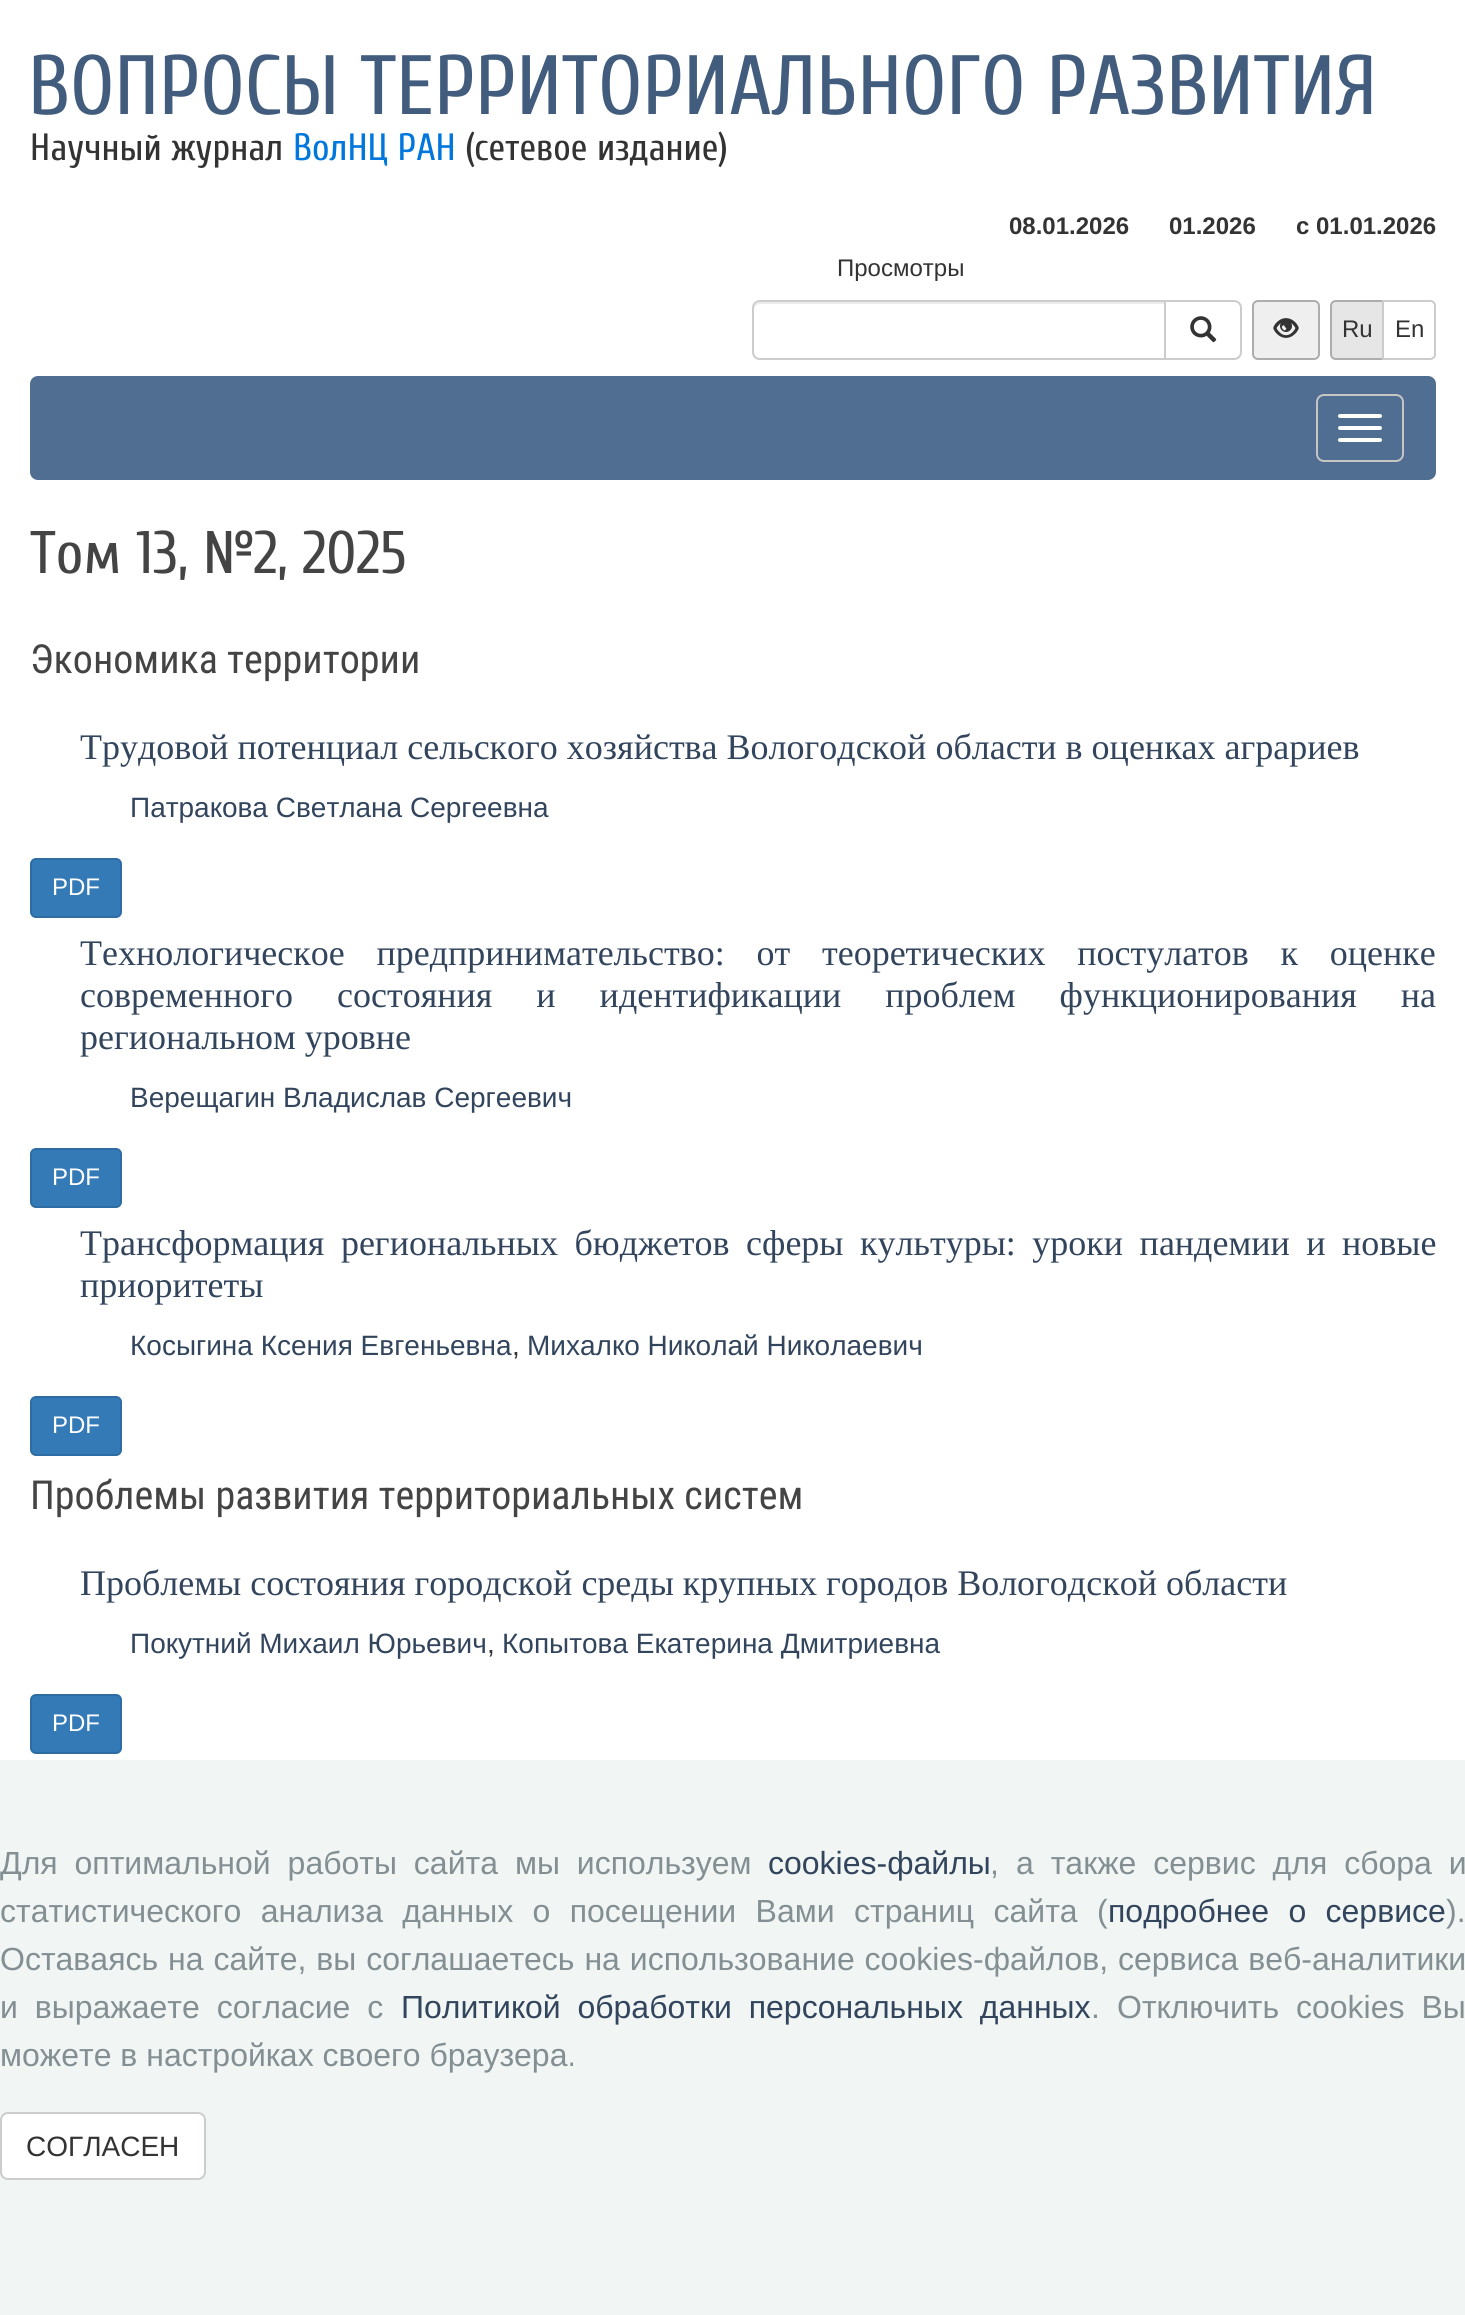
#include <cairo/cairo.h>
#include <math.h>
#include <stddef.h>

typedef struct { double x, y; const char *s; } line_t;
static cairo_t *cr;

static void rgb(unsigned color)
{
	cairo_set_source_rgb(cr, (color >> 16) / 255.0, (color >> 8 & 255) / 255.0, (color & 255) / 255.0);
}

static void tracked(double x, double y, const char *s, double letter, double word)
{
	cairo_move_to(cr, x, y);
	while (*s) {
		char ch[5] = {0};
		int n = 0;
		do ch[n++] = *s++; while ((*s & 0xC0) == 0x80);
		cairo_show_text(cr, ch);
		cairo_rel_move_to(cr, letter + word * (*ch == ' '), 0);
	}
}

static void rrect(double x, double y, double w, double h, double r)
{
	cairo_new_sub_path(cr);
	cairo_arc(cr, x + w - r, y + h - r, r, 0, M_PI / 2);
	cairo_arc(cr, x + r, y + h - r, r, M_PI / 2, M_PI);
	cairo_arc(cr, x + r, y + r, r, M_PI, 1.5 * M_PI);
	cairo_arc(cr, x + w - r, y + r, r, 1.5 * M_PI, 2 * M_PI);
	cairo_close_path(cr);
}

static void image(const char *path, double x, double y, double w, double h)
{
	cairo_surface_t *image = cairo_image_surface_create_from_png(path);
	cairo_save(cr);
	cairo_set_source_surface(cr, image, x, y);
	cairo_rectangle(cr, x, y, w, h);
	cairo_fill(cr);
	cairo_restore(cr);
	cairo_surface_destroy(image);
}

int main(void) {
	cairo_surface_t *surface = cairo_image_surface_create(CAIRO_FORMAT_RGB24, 1465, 2315);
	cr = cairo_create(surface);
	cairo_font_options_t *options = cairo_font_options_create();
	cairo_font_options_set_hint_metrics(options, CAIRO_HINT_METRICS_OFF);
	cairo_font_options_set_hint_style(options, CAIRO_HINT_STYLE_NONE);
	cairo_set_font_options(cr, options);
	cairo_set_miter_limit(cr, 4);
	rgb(0xffffff);
	cairo_paint(cr);
	rgb(0xececec);
	cairo_new_path(cr);
	cairo_move_to(cr, 760, 304);
	cairo_line_to(cr, 1164, 304);
	cairo_line_to(cr, 1164, 302);
	cairo_line_to(cr, 760, 302);
	cairo_curve_to(cr, 757, 302, 754, 305, 754, 308);
	cairo_line_to(cr, 754, 310);
	cairo_curve_to(cr, 754, 307, 757, 304, 760, 304);
	cairo_close_path(cr);
	cairo_fill(cr);
	cairo_new_path(cr);
	cairo_move_to(cr, 760, 301);
	cairo_line_to(cr, 1165, 301);
	cairo_line_to(cr, 1165, 359);
	cairo_line_to(cr, 760, 359);
	cairo_curve_to(cr, 756, 359, 753, 356, 753, 352);
	cairo_line_to(cr, 753, 308);
	cairo_curve_to(cr, 753, 304, 756, 301, 760, 301);
	cairo_close_path(cr);
	rgb(0xcccccc);
	cairo_stroke(cr);
	rgb(0xffffff);
	cairo_new_path(cr);
	cairo_move_to(cr, 1165, 301);
	cairo_line_to(cr, 1234, 301);
	cairo_curve_to(cr, 1238, 301, 1241, 304, 1241, 308);
	cairo_line_to(cr, 1241, 352);
	cairo_curve_to(cr, 1241, 356, 1238, 359, 1234, 359);
	cairo_line_to(cr, 1165, 359);
	cairo_close_path(cr);
	cairo_fill_preserve(cr);
	rgb(0xcccccc);
	cairo_stroke(cr);
	image("img/1.png", 1190, 316, 27, 27);
	rgb(0xefefef);
	rrect(1253, 301, 66, 58, 5);
	cairo_fill_preserve(cr);
	rgb(0xadadad);
	cairo_stroke(cr);
	image("img/2.png", 1273, 318, 26, 20);
	rgb(0xe6e6e6);
	cairo_new_path(cr);
	cairo_move_to(cr, 1336, 301);
	cairo_line_to(cr, 1383, 301);
	cairo_line_to(cr, 1383, 359);
	cairo_line_to(cr, 1336, 359);
	cairo_curve_to(cr, 1333, 359, 1331, 357, 1331, 354);
	cairo_line_to(cr, 1331, 306);
	cairo_curve_to(cr, 1331, 303, 1333, 301, 1336, 301);
	cairo_close_path(cr);
	cairo_fill_preserve(cr);
	rgb(0xadadad);
	cairo_stroke(cr);
	rgb(0xffffff);
	cairo_new_path(cr);
	cairo_move_to(cr, 1383, 301);
	cairo_line_to(cr, 1430, 301);
	cairo_curve_to(cr, 1433, 301, 1435, 303, 1435, 306);
	cairo_line_to(cr, 1435, 354);
	cairo_curve_to(cr, 1435, 357, 1433, 359, 1430, 359);
	cairo_line_to(cr, 1383, 359);
	cairo_close_path(cr);
	cairo_fill_preserve(cr);
	rgb(0xcccccc);
	cairo_stroke(cr);
	rgb(0x506d92);
	rrect(31, 377, 1404, 102, 7);
	cairo_fill_preserve(cr);
	cairo_stroke(cr);
	rrect(1317, 395, 86, 66, 7);
	rgb(0xc5c5c5);
	cairo_stroke(cr);
	rgb(0xffffff);
	rrect(1338, 414, 44, 4, 2);
	cairo_fill(cr);
	rrect(1338, 426, 44, 4, 2);
	cairo_fill(cr);
	rrect(1338, 438, 44, 4, 2);
	cairo_fill(cr);
	rgb(0x337ab7);
	rrect(31, 859, 90, 58, 5);
	cairo_fill_preserve(cr);
	rgb(0x2e6da4);
	cairo_stroke(cr);
	rgb(0x337ab7);
	rrect(31, 1149, 90, 58, 5);
	cairo_fill_preserve(cr);
	rgb(0x2e6da4);
	cairo_stroke(cr);
	rgb(0x337ab7);
	rrect(31, 1397, 90, 58, 5);
	cairo_fill_preserve(cr);
	rgb(0x2e6da4);
	cairo_stroke(cr);
	rgb(0x337ab7);
	rrect(31, 1695, 90, 58, 5);
	cairo_fill_preserve(cr);
	rgb(0x2e6da4);
	cairo_stroke(cr);
	rgb(0xf1f6f4);
	cairo_rectangle(cr, 0, 1760, 1465, 555);
	cairo_fill(cr);
	rgb(0xffffff);
	rrect(1, 2113, 204, 66, 7);
	cairo_fill_preserve(cr);
	rgb(0xcccccc);
	cairo_stroke(cr);
	cairo_select_font_face(cr, "Cuprum", CAIRO_FONT_SLANT_NORMAL, CAIRO_FONT_WEIGHT_NORMAL);
	cairo_set_font_size(cr, 84);
	rgb(0x415c7c);
	cairo_move_to(cr, 28, 114);
	cairo_show_text(cr, "ВОПРОСЫ ТЕРРИТОРИАЛЬНОГО РАЗВИТИЯ");
	cairo_set_font_size(cr, 38);
	rgb(0x333333);
	cairo_move_to(cr, 30, 160);
	cairo_show_text(cr, "Научный журнал");
	rgb(0x0077dd);
	cairo_move_to(cr, 293, 160);
	cairo_show_text(cr, "ВолНЦ РАН");
	rgb(0x333333);
	cairo_move_to(cr, 465, 160);
	cairo_show_text(cr, "(сетевое издание)");
	cairo_select_font_face(cr, "Liberation Sans", CAIRO_FONT_SLANT_NORMAL, CAIRO_FONT_WEIGHT_BOLD);
	cairo_set_font_size(cr, 24);
	{
		static const line_t items[] = {
			{1009, 234, "08.01.2026"},
			{1169, 234, "01.2026"},
			{1296, 234, "с 01.01.2026"},
		};
		for (size_t i = 0; i < sizeof items / sizeof *items; i++) {
			cairo_move_to(cr, items[i].x, items[i].y);
			cairo_show_text(cr, items[i].s);
		}
	}
	cairo_select_font_face(cr, "Liberation Sans", CAIRO_FONT_SLANT_NORMAL, CAIRO_FONT_WEIGHT_NORMAL);
	{
		static const line_t items[] = {
			{837, 276, "Просмотры"},
			{1342, 337, "Ru"},
			{1395, 337, "En"},
		};
		for (size_t i = 0; i < sizeof items / sizeof *items; i++) {
			cairo_move_to(cr, items[i].x, items[i].y);
			cairo_show_text(cr, items[i].s);
		}
	}
	cairo_select_font_face(cr, "Cuprum", CAIRO_FONT_SLANT_NORMAL, CAIRO_FONT_WEIGHT_NORMAL);
	cairo_set_font_size(cr, 60);
	rgb(0x444444);
	cairo_move_to(cr, 30, 573);
	cairo_show_text(cr, "Том 13, №2, 2025");
	cairo_select_font_face(cr, "Roboto Condensed", CAIRO_FONT_SLANT_NORMAL, CAIRO_FONT_WEIGHT_NORMAL);
	cairo_set_font_size(cr, 40);
	cairo_move_to(cr, 30, 673);
	cairo_show_text(cr, "Экономика территории");
	cairo_select_font_face(cr, "Liberation Serif", CAIRO_FONT_SLANT_NORMAL, CAIRO_FONT_WEIGHT_NORMAL);
	cairo_set_font_size(cr, 36);
	rgb(0x32455d);
	cairo_move_to(cr, 80, 759);
	cairo_show_text(cr, "Трудовой потенциал сельского хозяйства Вологодской области в оценках аграриев");
	cairo_select_font_face(cr, "Liberation Sans", CAIRO_FONT_SLANT_NORMAL, CAIRO_FONT_WEIGHT_NORMAL);
	cairo_set_font_size(cr, 28);
	cairo_move_to(cr, 130, 817);
	cairo_show_text(cr, "Патракова Светлана Сергеевна");
	cairo_set_font_size(cr, 24);
	rgb(0xffffff);
	cairo_move_to(cr, 52, 895);
	cairo_show_text(cr, "PDF");
	cairo_select_font_face(cr, "Liberation Serif", CAIRO_FONT_SLANT_NORMAL, CAIRO_FONT_WEIGHT_NORMAL);
	cairo_set_font_size(cr, 36);
	rgb(0x32455d);
	tracked(80, 965, "Технологическое предпринимательство: от теоретических постулатов к оценке", 0, 22.75);
	tracked(80, 1007, "современного состояния и идентификации проблем функционирования на", 0, 35);
	cairo_move_to(cr, 80, 1049);
	cairo_show_text(cr, "региональном уровне");
	cairo_select_font_face(cr, "Liberation Sans", CAIRO_FONT_SLANT_NORMAL, CAIRO_FONT_WEIGHT_NORMAL);
	cairo_set_font_size(cr, 28);
	cairo_move_to(cr, 130, 1107);
	cairo_show_text(cr, "Верещагин Владислав Сергеевич");
	cairo_set_font_size(cr, 24);
	rgb(0xffffff);
	cairo_move_to(cr, 52, 1185);
	cairo_show_text(cr, "PDF");
	cairo_select_font_face(cr, "Liberation Serif", CAIRO_FONT_SLANT_NORMAL, CAIRO_FONT_WEIGHT_NORMAL);
	cairo_set_font_size(cr, 36);
	rgb(0x32455d);
	tracked(80, 1255, "Трансформация региональных бюджетов сферы культуры: уроки пандемии и новые", 0, 7.5);
	cairo_move_to(cr, 80, 1297);
	cairo_show_text(cr, "приоритеты");
	cairo_select_font_face(cr, "Liberation Sans", CAIRO_FONT_SLANT_NORMAL, CAIRO_FONT_WEIGHT_NORMAL);
	cairo_set_font_size(cr, 28);
	cairo_move_to(cr, 130, 1355);
	cairo_show_text(cr, "Косыгина Ксения Евгеньевна");
	rgb(0x333333);
	cairo_move_to(cr, 512, 1355);
	cairo_show_text(cr, ",");
	rgb(0x32455d);
	cairo_move_to(cr, 527, 1355);
	cairo_show_text(cr, "Михалко Николай Николаевич");
	cairo_set_font_size(cr, 24);
	rgb(0xffffff);
	cairo_move_to(cr, 52, 1433);
	cairo_show_text(cr, "PDF");
	cairo_select_font_face(cr, "Roboto Condensed", CAIRO_FONT_SLANT_NORMAL, CAIRO_FONT_WEIGHT_NORMAL);
	cairo_set_font_size(cr, 40);
	rgb(0x444444);
	cairo_move_to(cr, 30, 1509);
	cairo_show_text(cr, "Проблемы развития территориальных систем");
	cairo_select_font_face(cr, "Liberation Serif", CAIRO_FONT_SLANT_NORMAL, CAIRO_FONT_WEIGHT_NORMAL);
	cairo_set_font_size(cr, 36);
	rgb(0x32455d);
	cairo_move_to(cr, 80, 1595);
	cairo_show_text(cr, "Проблемы состояния городской среды крупных городов Вологодской области");
	cairo_select_font_face(cr, "Liberation Sans", CAIRO_FONT_SLANT_NORMAL, CAIRO_FONT_WEIGHT_NORMAL);
	cairo_set_font_size(cr, 28);
	cairo_move_to(cr, 130, 1653);
	cairo_show_text(cr, "Покутний Михаил Юрьевич");
	rgb(0x333333);
	cairo_move_to(cr, 487, 1653);
	cairo_show_text(cr, ",");
	rgb(0x32455d);
	cairo_move_to(cr, 502, 1653);
	cairo_show_text(cr, "Копытова Екатерина Дмитриевна");
	cairo_set_font_size(cr, 24);
	rgb(0xffffff);
	cairo_move_to(cr, 52, 1731);
	cairo_show_text(cr, "PDF");
	cairo_set_font_size(cr, 32);
	rgb(0x838f93);
	tracked(0, 1874, "Для оптимальной работы сайта мы используем", 0, 8);
	rgb(0x32455d);
	cairo_move_to(cr, 768, 1874);
	cairo_show_text(cr, "cookies-файлы");
	rgb(0x838f93);
	cairo_move_to(cr, 990, 1874);
	cairo_show_text(cr, ",");
	tracked(1016, 1874, "а также сервис для сбора и", 0, 8);
	tracked(0, 1922, "статистического анализа данных о посещении Вами страниц сайта (", 0, 10.5);
	rgb(0x32455d);
	tracked(1108, 1922, "подробнее о сервисе", 0, 10.5);
	rgb(0x838f93);
	cairo_move_to(cr, 1446, 1922);
	cairo_show_text(cr, ").");
	tracked(0, 1970, "Оставаясь на сайте, вы соглашаетесь на использование cookies-файлов, сервиса веб-аналитики", 0, 1);
	tracked(0, 2018, "и выражаете согласие с", 0, 8);
	rgb(0x32455d);
	tracked(401, 2018, "Политикой обработки персональных данных", 0, 8);
	rgb(0x838f93);
	cairo_move_to(cr, 1091, 2018);
	cairo_show_text(cr, ".");
	tracked(1117, 2018, "Отключить cookies Вы", 0, 8);
	cairo_move_to(cr, 0, 2066);
	cairo_show_text(cr, "можете в настройках своего браузера.");
	cairo_set_font_size(cr, 28);
	rgb(0x333333);
	cairo_move_to(cr, 26, 2156);
	cairo_show_text(cr, "СОГЛАСЕН");
	cairo_surface_write_to_png(surface, "page.png");
	cairo_font_options_destroy(options);
	cairo_destroy(cr);
	cairo_surface_destroy(surface);
	return 0;
}
